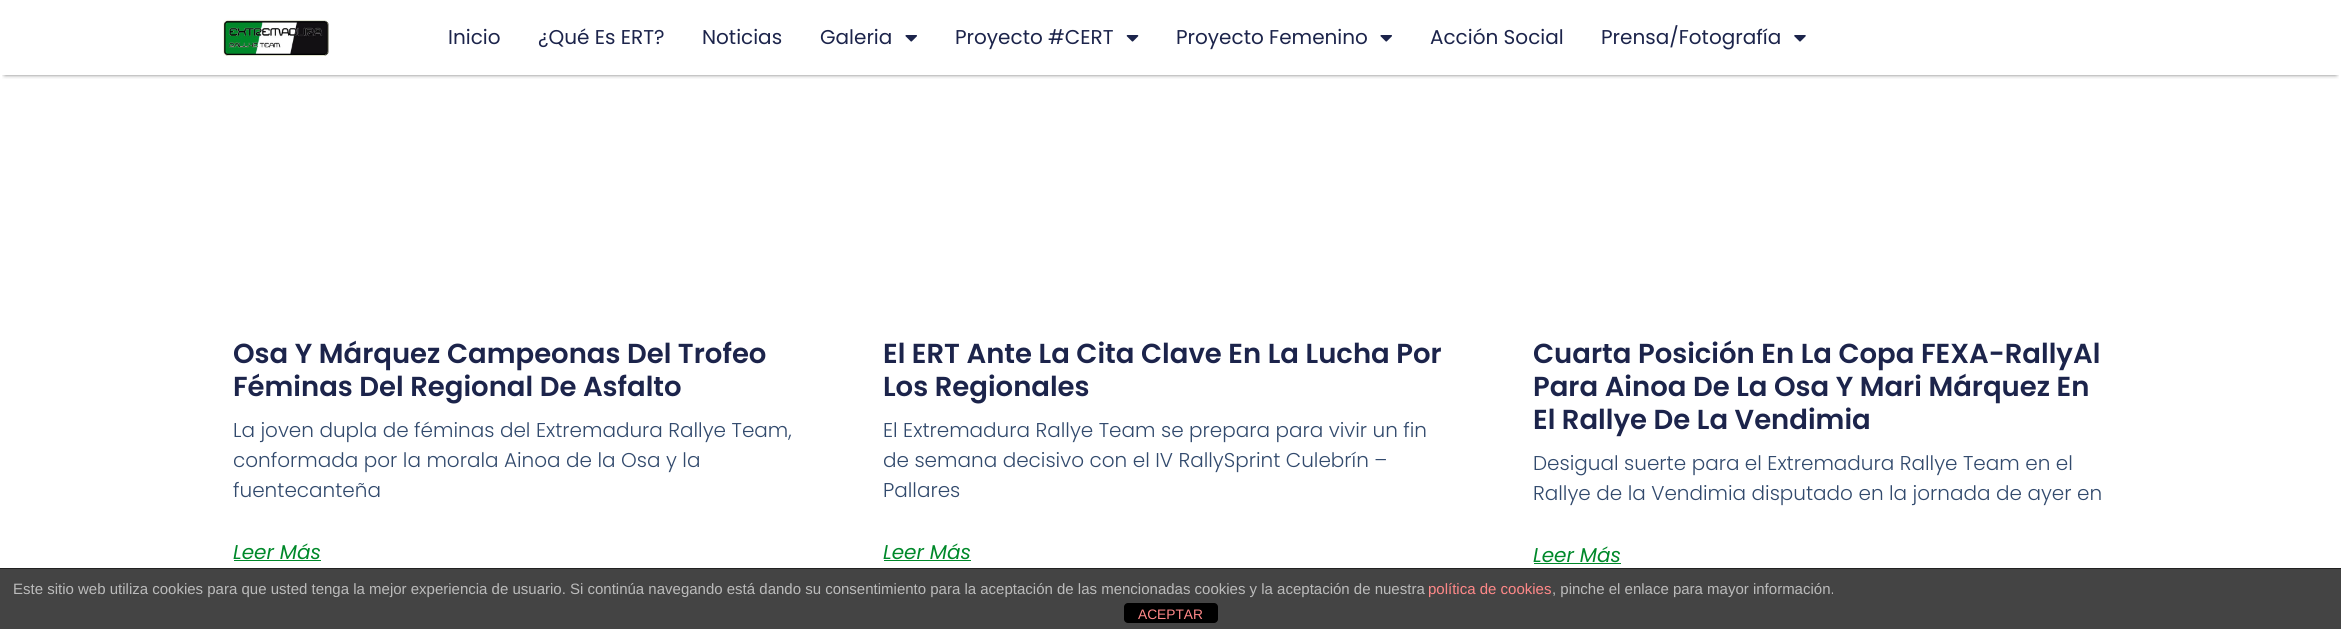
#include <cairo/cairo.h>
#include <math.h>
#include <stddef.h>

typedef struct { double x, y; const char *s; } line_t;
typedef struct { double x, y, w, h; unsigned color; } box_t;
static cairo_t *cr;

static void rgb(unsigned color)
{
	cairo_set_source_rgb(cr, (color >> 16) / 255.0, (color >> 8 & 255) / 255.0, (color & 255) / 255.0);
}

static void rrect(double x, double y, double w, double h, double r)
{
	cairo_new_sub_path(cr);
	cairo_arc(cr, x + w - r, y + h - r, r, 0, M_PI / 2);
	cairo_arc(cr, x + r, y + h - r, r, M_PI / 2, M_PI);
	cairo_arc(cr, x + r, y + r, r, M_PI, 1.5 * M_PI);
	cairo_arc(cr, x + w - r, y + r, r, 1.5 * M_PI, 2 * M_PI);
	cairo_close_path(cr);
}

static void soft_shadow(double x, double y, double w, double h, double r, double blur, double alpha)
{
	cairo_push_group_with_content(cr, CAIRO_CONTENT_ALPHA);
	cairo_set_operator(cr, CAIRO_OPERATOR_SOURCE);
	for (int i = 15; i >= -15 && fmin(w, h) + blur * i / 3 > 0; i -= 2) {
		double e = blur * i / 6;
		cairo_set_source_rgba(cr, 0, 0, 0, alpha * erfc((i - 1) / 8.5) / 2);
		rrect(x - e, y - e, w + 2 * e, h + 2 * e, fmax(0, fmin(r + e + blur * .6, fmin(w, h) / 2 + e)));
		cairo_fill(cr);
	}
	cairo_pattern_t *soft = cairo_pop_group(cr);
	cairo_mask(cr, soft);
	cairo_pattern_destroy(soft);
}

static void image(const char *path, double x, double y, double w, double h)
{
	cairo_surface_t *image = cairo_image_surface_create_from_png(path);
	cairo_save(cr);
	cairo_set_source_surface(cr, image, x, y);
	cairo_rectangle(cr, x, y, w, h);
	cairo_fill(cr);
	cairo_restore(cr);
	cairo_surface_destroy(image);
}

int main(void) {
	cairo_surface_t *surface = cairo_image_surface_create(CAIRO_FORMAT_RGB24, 2341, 629);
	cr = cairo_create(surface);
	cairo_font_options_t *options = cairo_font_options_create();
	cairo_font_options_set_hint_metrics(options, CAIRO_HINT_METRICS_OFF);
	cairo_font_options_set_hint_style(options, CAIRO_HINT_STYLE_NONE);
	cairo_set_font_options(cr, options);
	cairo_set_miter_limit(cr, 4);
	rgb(0xffffff);
	cairo_paint(cr);
	cairo_save(cr);
	cairo_rectangle(cr, 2, 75, 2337, 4);
	cairo_clip(cr);
	rgb(0x000000);
	soft_shadow(5, 9, 2331, 65, 0, 2.5, 0.8);
	cairo_restore(cr);
	image("img/1.png", 223, 19, 106, 37);
	image("img/2.png", 905, 35, 12, 7);
	image("img/3.png", 1126, 35, 13, 7);
	image("img/2.png", 1380, 35, 12, 7);
	image("img/4.png", 1794, 35, 12, 7);
	{
		static const box_t items[] = {
			{234, 560, 87, 1, 0x00892a},
			{884, 560, 87, 1, 0x00892a},
			{1534, 563, 87, 1, 0x00892a},
			{0, 569, 2341, 60, 0x444444},
			{0, 568, 2341, 1, 0x222222},
		};
		for (size_t i = 0; i < sizeof items / sizeof *items; i++) {
			rgb(items[i].color);
			cairo_rectangle(cr, items[i].x, items[i].y, items[i].w, items[i].h);
			cairo_fill(cr);
		}
	}
	rgb(0x000000);
	rrect(1124, 603, 94, 20, 4);
	cairo_fill(cr);
	cairo_select_font_face(cr, "Poppins", CAIRO_FONT_SLANT_NORMAL, CAIRO_FONT_WEIGHT_NORMAL);
	cairo_set_font_size(cr, 20);
	rgb(0x1c244b);
	{
		static const line_t items[] = {
			{448, 44, "Inicio"},
			{538, 44, "¿Qué Es ERT?"},
			{702, 44, "Noticias"},
			{820, 44, "Galeria"},
			{955, 44, "Proyecto #CERT"},
			{1176, 44, "Proyecto Femenino"},
			{1430, 44, "Acción Social"},
			{1601, 44, "Prensa/Fotografía"},
		};
		for (size_t i = 0; i < sizeof items / sizeof *items; i++) {
			cairo_move_to(cr, items[i].x, items[i].y);
			cairo_show_text(cr, items[i].s);
		}
	}
	cairo_select_font_face(cr, "Poppins SemiBold", CAIRO_FONT_SLANT_NORMAL, CAIRO_FONT_WEIGHT_NORMAL);
	cairo_set_font_size(cr, 27.5);
	cairo_move_to(cr, 233, 363);
	cairo_show_text(cr, "Osa Y Márquez Campeonas Del Trofeo");
	cairo_move_to(cr, 233, 396);
	cairo_show_text(cr, "Féminas Del Regional De Asfalto");
	cairo_select_font_face(cr, "Poppins Light", CAIRO_FONT_SLANT_NORMAL, CAIRO_FONT_WEIGHT_NORMAL);
	cairo_set_font_size(cr, 20);
	rgb(0x324a6d);
	{
		static const line_t items[] = {
			{233, 437, "La joven dupla de féminas del Extremadura Rallye Team,"},
			{233, 467, "conformada por la morala Ainoa de la Osa y la"},
			{233, 497, "fuentecanteña"},
		};
		for (size_t i = 0; i < sizeof items / sizeof *items; i++) {
			cairo_move_to(cr, items[i].x, items[i].y);
			cairo_show_text(cr, items[i].s);
		}
	}
	cairo_select_font_face(cr, "Poppins", CAIRO_FONT_SLANT_ITALIC, CAIRO_FONT_WEIGHT_NORMAL);
	rgb(0x00892a);
	cairo_move_to(cr, 233, 559);
	cairo_show_text(cr, "Leer Más");
	cairo_select_font_face(cr, "Poppins SemiBold", CAIRO_FONT_SLANT_NORMAL, CAIRO_FONT_WEIGHT_NORMAL);
	cairo_set_font_size(cr, 27.5);
	rgb(0x1c244b);
	cairo_move_to(cr, 883, 363);
	cairo_show_text(cr, "El ERT Ante La Cita Clave En La Lucha Por");
	cairo_move_to(cr, 883, 396);
	cairo_show_text(cr, "Los Regionales");
	cairo_select_font_face(cr, "Poppins Light", CAIRO_FONT_SLANT_NORMAL, CAIRO_FONT_WEIGHT_NORMAL);
	cairo_set_font_size(cr, 20);
	rgb(0x324a6d);
	{
		static const line_t items[] = {
			{883, 437, "El Extremadura Rallye Team se prepara para vivir un fin"},
			{883, 467, "de semana decisivo con el IV RallySprint Culebrín –"},
			{883, 497, "Pallares"},
		};
		for (size_t i = 0; i < sizeof items / sizeof *items; i++) {
			cairo_move_to(cr, items[i].x, items[i].y);
			cairo_show_text(cr, items[i].s);
		}
	}
	cairo_select_font_face(cr, "Poppins", CAIRO_FONT_SLANT_ITALIC, CAIRO_FONT_WEIGHT_NORMAL);
	rgb(0x00892a);
	cairo_move_to(cr, 883, 559);
	cairo_show_text(cr, "Leer Más");
	cairo_select_font_face(cr, "Poppins SemiBold", CAIRO_FONT_SLANT_NORMAL, CAIRO_FONT_WEIGHT_NORMAL);
	cairo_set_font_size(cr, 27.5);
	rgb(0x1c244b);
	{
		static const line_t items[] = {
			{1533, 363, "Cuarta Posición En La Copa FEXA-RallyAl"},
			{1533, 396, "Para Ainoa De La Osa Y Mari Márquez En"},
			{1533, 429, "El Rallye De La Vendimia"},
		};
		for (size_t i = 0; i < sizeof items / sizeof *items; i++) {
			cairo_move_to(cr, items[i].x, items[i].y);
			cairo_show_text(cr, items[i].s);
		}
	}
	cairo_select_font_face(cr, "Poppins Light", CAIRO_FONT_SLANT_NORMAL, CAIRO_FONT_WEIGHT_NORMAL);
	cairo_set_font_size(cr, 20);
	rgb(0x324a6d);
	cairo_move_to(cr, 1533, 470);
	cairo_show_text(cr, "Desigual suerte para el Extremadura Rallye Team en el");
	cairo_move_to(cr, 1533, 500);
	cairo_show_text(cr, "Rallye de la Vendimia disputado en la jornada de ayer en");
	cairo_select_font_face(cr, "Poppins", CAIRO_FONT_SLANT_ITALIC, CAIRO_FONT_WEIGHT_NORMAL);
	rgb(0x00892a);
	cairo_move_to(cr, 1533, 562);
	cairo_show_text(cr, "Leer Más");
	cairo_select_font_face(cr, "Liberation Sans", CAIRO_FONT_SLANT_NORMAL, CAIRO_FONT_WEIGHT_NORMAL);
	cairo_set_font_size(cr, 15);
	rgb(0xbbbbbb);
	cairo_move_to(cr, 13, 594);
	cairo_show_text(cr, "Este sitio web utiliza cookies para que usted tenga la mejor experiencia de usuario. Si continúa navegando está dando su consentimiento para la aceptación de las mencionadas cookies y la aceptación de nuestra");
	rgb(0xff8888);
	cairo_move_to(cr, 1428, 594);
	cairo_show_text(cr, "política de cookies");
	rgb(0xbbbbbb);
	cairo_move_to(cr, 1552, 594);
	cairo_show_text(cr, ", pinche el enlace para mayor información.");
	cairo_set_font_size(cr, 13.75);
	rgb(0xff8888);
	cairo_move_to(cr, 1138, 619);
	cairo_show_text(cr, "ACEPTAR");
	cairo_surface_write_to_png(surface, "page.png");
	cairo_font_options_destroy(options);
	cairo_destroy(cr);
	cairo_surface_destroy(surface);
	return 0;
}
